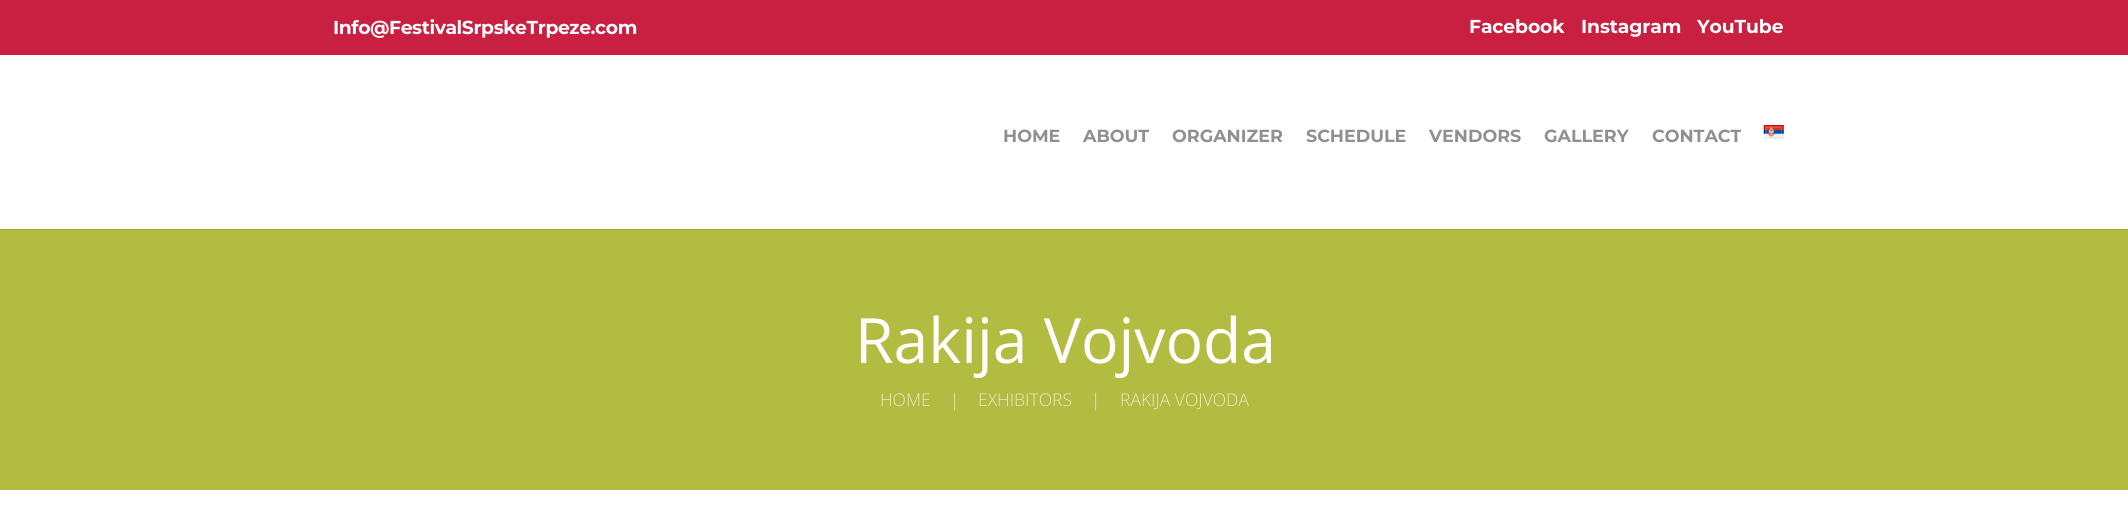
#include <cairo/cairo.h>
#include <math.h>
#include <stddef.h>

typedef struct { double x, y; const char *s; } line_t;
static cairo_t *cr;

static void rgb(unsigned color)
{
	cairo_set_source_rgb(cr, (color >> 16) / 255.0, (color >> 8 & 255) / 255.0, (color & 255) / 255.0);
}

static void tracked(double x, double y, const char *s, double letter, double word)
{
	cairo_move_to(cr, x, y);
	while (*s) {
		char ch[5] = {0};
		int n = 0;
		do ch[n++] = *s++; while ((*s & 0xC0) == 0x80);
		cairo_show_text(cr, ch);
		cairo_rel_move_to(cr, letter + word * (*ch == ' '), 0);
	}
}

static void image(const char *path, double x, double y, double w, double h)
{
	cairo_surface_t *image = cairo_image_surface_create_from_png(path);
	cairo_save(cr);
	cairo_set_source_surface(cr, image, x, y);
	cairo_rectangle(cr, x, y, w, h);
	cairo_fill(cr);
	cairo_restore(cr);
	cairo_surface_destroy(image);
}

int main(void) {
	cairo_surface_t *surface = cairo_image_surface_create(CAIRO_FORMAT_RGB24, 2128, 514);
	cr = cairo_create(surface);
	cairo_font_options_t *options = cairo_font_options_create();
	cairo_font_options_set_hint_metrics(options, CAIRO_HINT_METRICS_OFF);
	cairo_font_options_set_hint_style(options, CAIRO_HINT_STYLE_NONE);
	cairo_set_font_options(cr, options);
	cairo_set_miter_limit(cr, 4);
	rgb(0xffffff);
	cairo_paint(cr);
	rgb(0xc91f40);
	cairo_rectangle(cr, 0, 0, 2128, 55);
	cairo_fill(cr);
	image("img/1.png", 1763, 125, 21, 14);
	rgb(0xb1bc41);
	cairo_rectangle(cr, 0, 230, 2128, 260);
	cairo_fill(cr);
	rgb(0x9fa93b);
	cairo_rectangle(cr, 0, 229, 2128, 1);
	cairo_fill(cr);
	cairo_select_font_face(cr, "Montserrat", CAIRO_FONT_SLANT_NORMAL, CAIRO_FONT_WEIGHT_BOLD);
	cairo_set_font_size(cr, 18.75);
	rgb(0xffffff);
	tracked(333, 34, "Info@FestivalSrpskeTrpeze.com", -0.4, 0);
	{
		static const line_t items[] = {
			{1469, 33, "Facebook"},
			{1581, 33, "Instagram"},
			{1697, 33, "YouTube"},
		};
		for (size_t i = 0; i < sizeof items / sizeof *items; i++) {
			tracked(items[i].x, items[i].y, items[i].s, -0.1, 0);
		}
	}
	cairo_set_font_size(cr, 17.5);
	rgb(0x909090);
	{
		static const line_t items[] = {
			{1003, 142, "HOME"},
			{1083, 142, "ABOUT"},
			{1172, 142, "ORGANIZER"},
			{1306, 142, "SCHEDULE"},
			{1429, 142, "VENDORS"},
			{1544, 142, "GALLERY"},
			{1652, 142, "CONTACT"},
		};
		for (size_t i = 0; i < sizeof items / sizeof *items; i++) {
			cairo_move_to(cr, items[i].x, items[i].y);
			cairo_show_text(cr, items[i].s);
		}
	}
	cairo_select_font_face(cr, "Open Sans", CAIRO_FONT_SLANT_NORMAL, CAIRO_FONT_WEIGHT_NORMAL);
	cairo_set_font_size(cr, 62.5);
	rgb(0xffffff);
	cairo_move_to(cr, 855, 363);
	cairo_show_text(cr, "Rakija Vojvoda");
	cairo_select_font_face(cr, "Open Sans Light", CAIRO_FONT_SLANT_NORMAL, CAIRO_FONT_WEIGHT_NORMAL);
	cairo_set_font_size(cr, 17.5);
	rgb(0xe8ebc6);
	{
		static const line_t items[] = {
			{880, 406, "HOME"},
			{950, 406, "|"},
			{978, 406, "ЕXHIBITORS"},
			{1091, 406, "|"},
			{1120, 406, "RAKIJA VOJVODA"},
		};
		for (size_t i = 0; i < sizeof items / sizeof *items; i++) {
			cairo_move_to(cr, items[i].x, items[i].y);
			cairo_show_text(cr, items[i].s);
		}
	}
	cairo_surface_write_to_png(surface, "page.png");
	cairo_font_options_destroy(options);
	cairo_destroy(cr);
	cairo_surface_destroy(surface);
	return 0;
}
